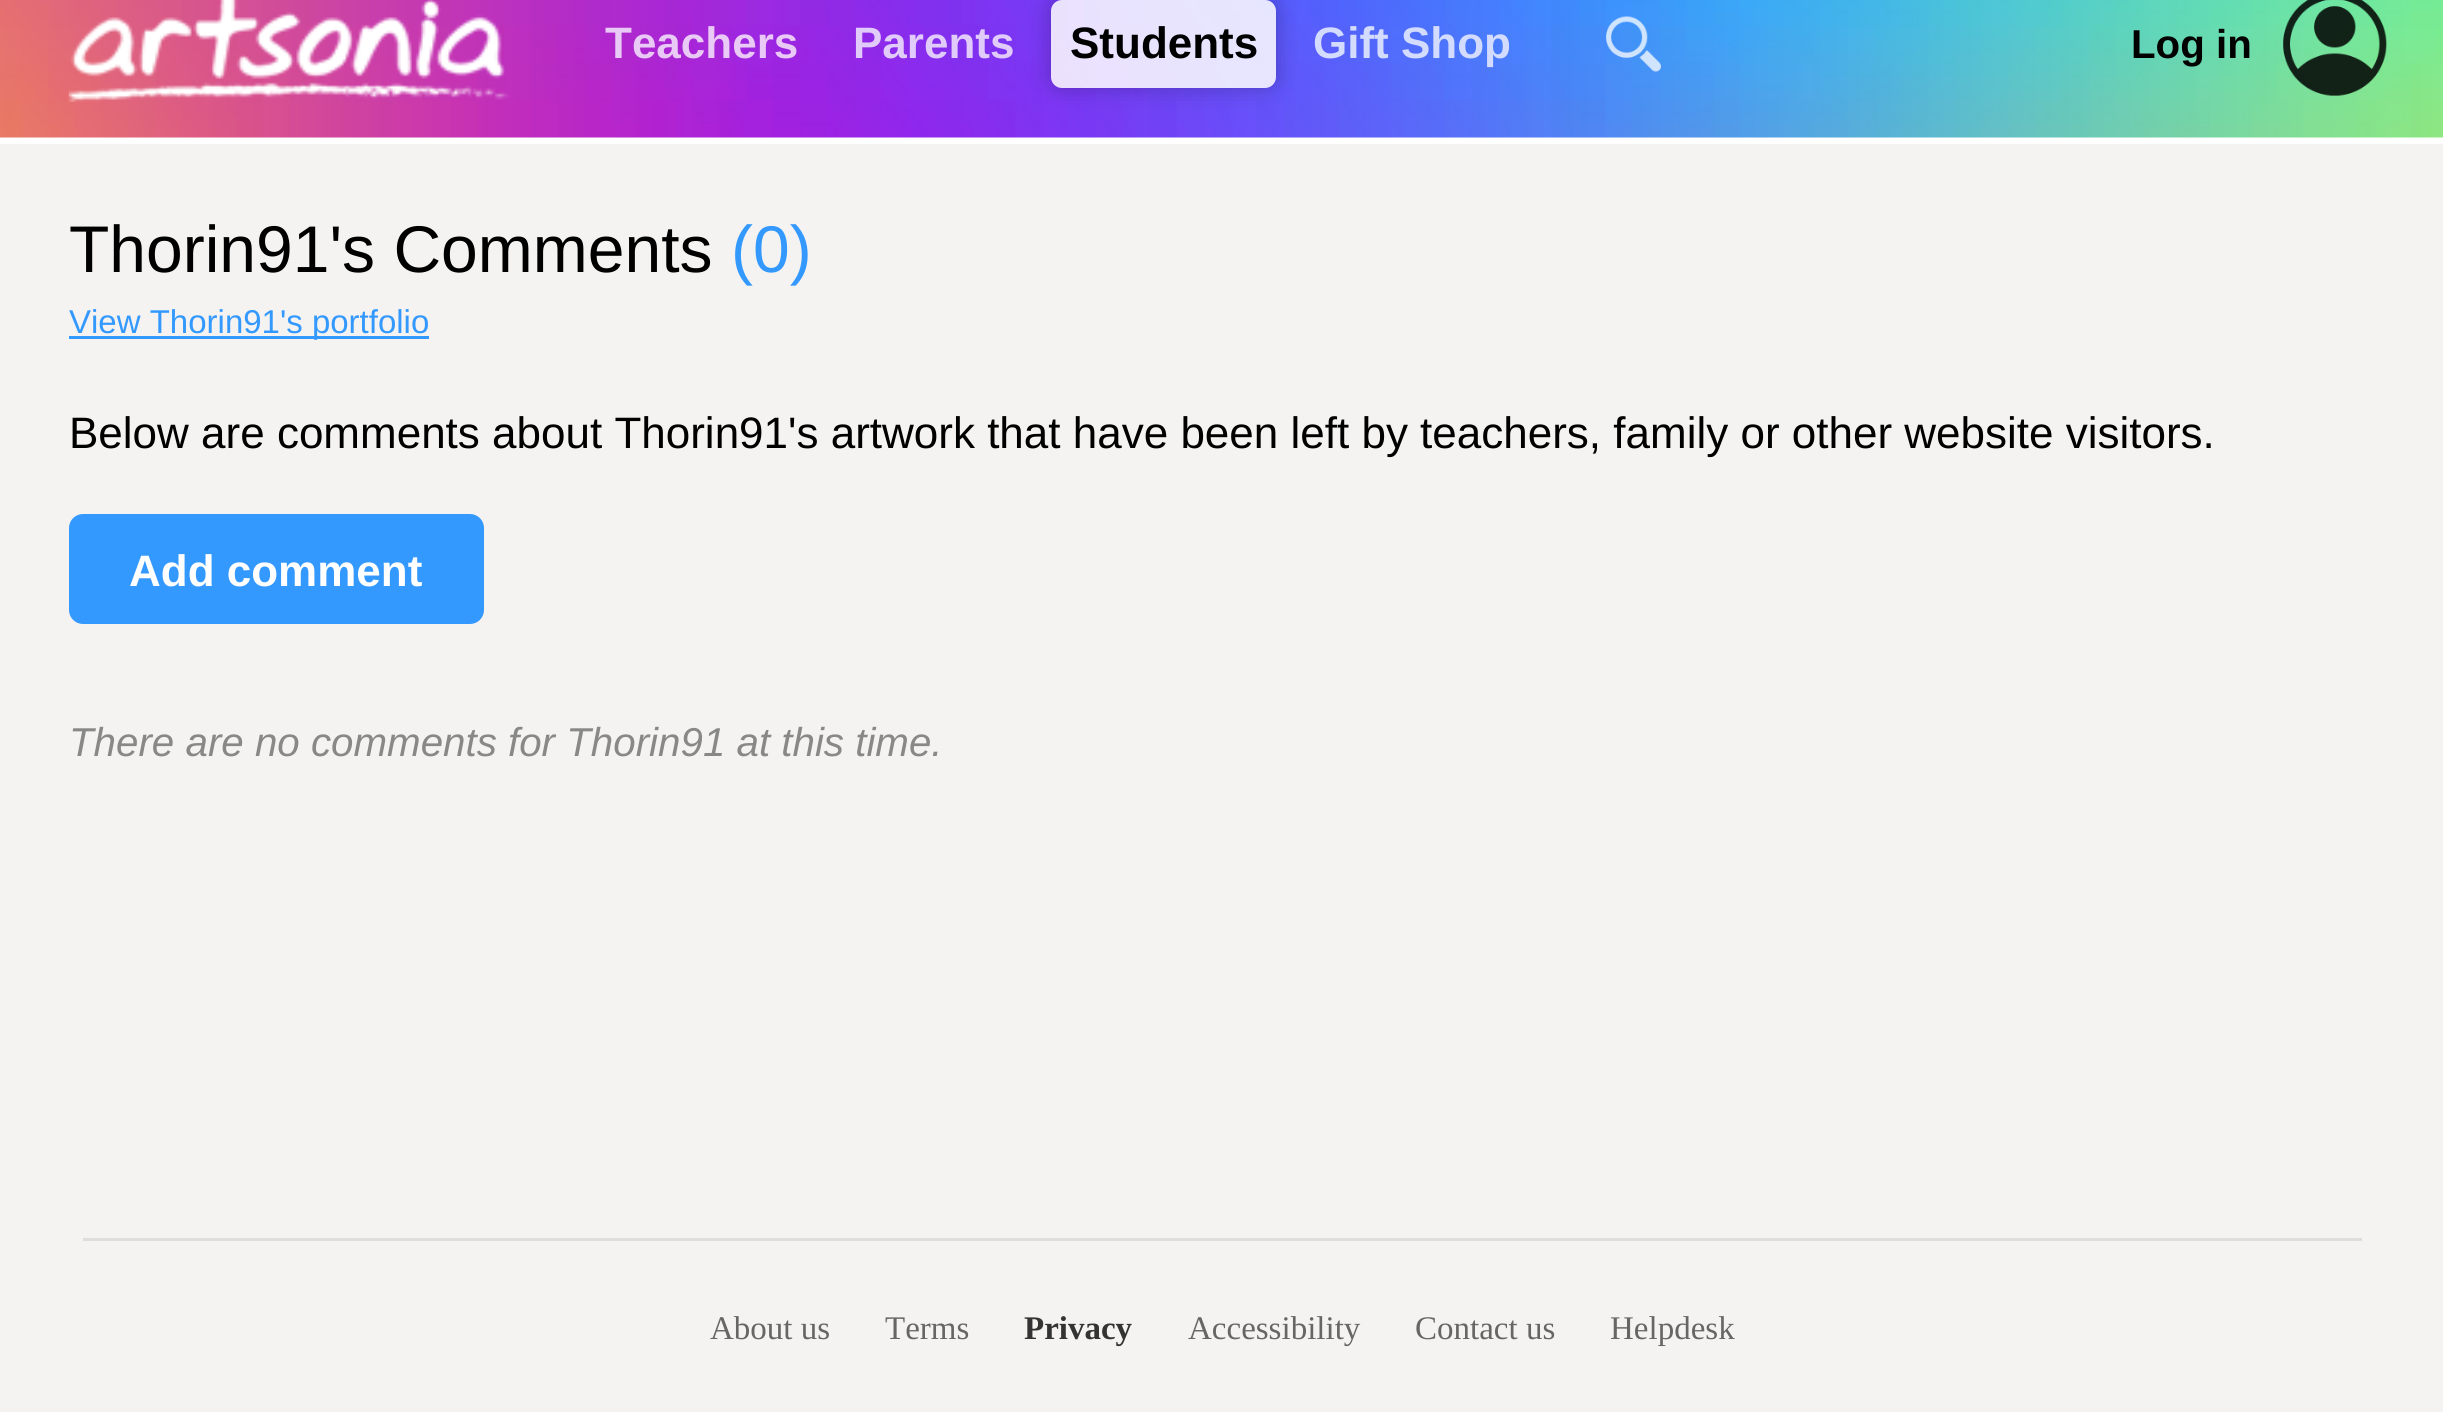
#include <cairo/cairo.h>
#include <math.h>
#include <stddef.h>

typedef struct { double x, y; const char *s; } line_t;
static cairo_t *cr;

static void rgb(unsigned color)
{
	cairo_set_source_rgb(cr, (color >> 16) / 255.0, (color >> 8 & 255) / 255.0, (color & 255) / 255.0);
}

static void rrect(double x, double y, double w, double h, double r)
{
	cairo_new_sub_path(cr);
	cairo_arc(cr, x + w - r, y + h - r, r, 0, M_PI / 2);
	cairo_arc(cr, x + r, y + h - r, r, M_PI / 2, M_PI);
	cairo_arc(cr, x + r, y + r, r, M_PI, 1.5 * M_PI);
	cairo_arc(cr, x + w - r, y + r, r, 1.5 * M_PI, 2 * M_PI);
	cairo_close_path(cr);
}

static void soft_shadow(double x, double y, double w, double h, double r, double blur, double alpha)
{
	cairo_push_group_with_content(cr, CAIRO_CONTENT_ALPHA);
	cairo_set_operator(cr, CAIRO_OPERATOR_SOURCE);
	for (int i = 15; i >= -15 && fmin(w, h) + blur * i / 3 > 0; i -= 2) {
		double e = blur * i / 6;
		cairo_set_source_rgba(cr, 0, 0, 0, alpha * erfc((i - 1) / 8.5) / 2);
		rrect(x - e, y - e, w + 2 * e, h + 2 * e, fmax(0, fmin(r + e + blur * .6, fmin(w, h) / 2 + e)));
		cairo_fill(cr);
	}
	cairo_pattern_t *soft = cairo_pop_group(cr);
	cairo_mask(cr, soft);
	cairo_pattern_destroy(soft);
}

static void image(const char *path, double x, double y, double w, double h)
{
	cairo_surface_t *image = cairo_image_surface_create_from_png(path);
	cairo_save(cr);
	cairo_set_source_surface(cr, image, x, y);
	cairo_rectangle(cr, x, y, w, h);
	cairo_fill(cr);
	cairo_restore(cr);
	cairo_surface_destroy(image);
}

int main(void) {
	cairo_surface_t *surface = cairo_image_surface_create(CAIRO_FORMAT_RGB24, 2443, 1412);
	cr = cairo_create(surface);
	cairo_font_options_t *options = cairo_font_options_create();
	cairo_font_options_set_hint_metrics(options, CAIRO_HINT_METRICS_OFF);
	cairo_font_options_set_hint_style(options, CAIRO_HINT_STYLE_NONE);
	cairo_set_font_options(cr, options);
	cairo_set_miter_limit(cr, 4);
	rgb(0xf4f3f1);
	cairo_paint(cr);
	rgb(0xffffff);
	cairo_rectangle(cr, 0, 137, 2443, 7);
	cairo_fill(cr);
	image("img/1.png", 0, 0, 2443, 138);
	image("img/2.png", 68, 0, 441, 102);
	cairo_save(cr);
	cairo_set_fill_rule(cr, CAIRO_FILL_RULE_EVEN_ODD);
	cairo_new_path(cr);
	cairo_move_to(cr, 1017, 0);
	cairo_line_to(cr, 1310, 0);
	cairo_line_to(cr, 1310, 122);
	cairo_line_to(cr, 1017, 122);
	cairo_close_path(cr);
	cairo_move_to(cr, 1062, 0);
	cairo_line_to(cr, 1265, 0);
	cairo_curve_to(cr, 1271, 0, 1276, 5, 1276, 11);
	cairo_line_to(cr, 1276, 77);
	cairo_curve_to(cr, 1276, 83, 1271, 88, 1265, 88);
	cairo_line_to(cr, 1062, 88);
	cairo_curve_to(cr, 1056, 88, 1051, 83, 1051, 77);
	cairo_line_to(cr, 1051, 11);
	cairo_curve_to(cr, 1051, 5, 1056, 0, 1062, 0);
	cairo_close_path(cr);
	cairo_clip(cr);
	rgb(0x000000);
	soft_shadow(1051, 0, 225, 88, 11, 11, 0.25);
	cairo_restore(cr);
	cairo_set_source_rgba(cr, 1, 1, 1, 0.85);
	rrect(1051, 0, 225, 88, 11);
	cairo_fill(cr);
	image("img/3.png", 1606, 16, 55, 56);
	image("img/4.png", 2283, 0, 104, 96);
	rgb(0x3399ff);
	cairo_rectangle(cr, 69, 336, 360, 3);
	cairo_fill(cr);
	rrect(69, 514, 415, 110, 14);
	cairo_fill(cr);
	rgb(0xdddddd);
	cairo_rectangle(cr, 83, 1238, 2279, 3);
	cairo_fill(cr);
	cairo_select_font_face(cr, "Liberation Sans", CAIRO_FONT_SLANT_NORMAL, CAIRO_FONT_WEIGHT_BOLD);
	cairo_set_font_size(cr, 44);
	rgb(0xe9c9f5);
	cairo_move_to(cr, 605, 58);
	cairo_show_text(cr, "Teachers");
	rgb(0xe1cbfb);
	cairo_move_to(cr, 853, 58);
	cairo_show_text(cr, "Parents");
	rgb(0x000000);
	cairo_move_to(cr, 1070, 58);
	cairo_show_text(cr, "Students");
	rgb(0xd3dbfe);
	cairo_move_to(cr, 1313, 58);
	cairo_show_text(cr, "Gift Shop");
	cairo_set_font_size(cr, 40.3);
	rgb(0x000000);
	cairo_move_to(cr, 2131, 58);
	cairo_show_text(cr, "Log in");
	cairo_select_font_face(cr, "Liberation Sans", CAIRO_FONT_SLANT_NORMAL, CAIRO_FONT_WEIGHT_NORMAL);
	cairo_set_font_size(cr, 66);
	cairo_move_to(cr, 69, 272);
	cairo_show_text(cr, "Thorin91's Comments");
	rgb(0x3399ff);
	cairo_move_to(cr, 731, 272);
	cairo_show_text(cr, "(0)");
	cairo_set_font_size(cr, 33);
	cairo_move_to(cr, 69, 333);
	cairo_show_text(cr, "View Thorin91's portfolio");
	cairo_set_font_size(cr, 44);
	rgb(0x000000);
	cairo_move_to(cr, 69, 448);
	cairo_show_text(cr, "Below are comments about Thorin91's artwork that have been left by teachers, family or other website visitors.");
	cairo_select_font_face(cr, "Liberation Sans", CAIRO_FONT_SLANT_NORMAL, CAIRO_FONT_WEIGHT_BOLD);
	rgb(0xffffff);
	cairo_move_to(cr, 129, 586);
	cairo_show_text(cr, "Add comment");
	cairo_select_font_face(cr, "Liberation Sans", CAIRO_FONT_SLANT_ITALIC, CAIRO_FONT_WEIGHT_NORMAL);
	cairo_set_font_size(cr, 40.3);
	rgb(0x888888);
	cairo_move_to(cr, 69, 756);
	cairo_show_text(cr, "There are no comments for Thorin91 at this time.");
	cairo_select_font_face(cr, "Liberation Serif", CAIRO_FONT_SLANT_NORMAL, CAIRO_FONT_WEIGHT_NORMAL);
	cairo_set_font_size(cr, 33);
	rgb(0x666666);
	cairo_move_to(cr, 710, 1339);
	cairo_show_text(cr, "About us");
	cairo_move_to(cr, 885, 1339);
	cairo_show_text(cr, "Terms");
	cairo_select_font_face(cr, "Liberation Serif", CAIRO_FONT_SLANT_NORMAL, CAIRO_FONT_WEIGHT_BOLD);
	rgb(0x333333);
	cairo_move_to(cr, 1024, 1339);
	cairo_show_text(cr, "Privacy");
	cairo_select_font_face(cr, "Liberation Serif", CAIRO_FONT_SLANT_NORMAL, CAIRO_FONT_WEIGHT_NORMAL);
	rgb(0x666666);
	{
		static const line_t items[] = {
			{1188, 1339, "Accessibility"},
			{1415, 1339, "Contact us"},
			{1610, 1339, "Helpdesk"},
		};
		for (size_t i = 0; i < sizeof items / sizeof *items; i++) {
			cairo_move_to(cr, items[i].x, items[i].y);
			cairo_show_text(cr, items[i].s);
		}
	}
	cairo_surface_write_to_png(surface, "page.png");
	cairo_font_options_destroy(options);
	cairo_destroy(cr);
	cairo_surface_destroy(surface);
	return 0;
}
